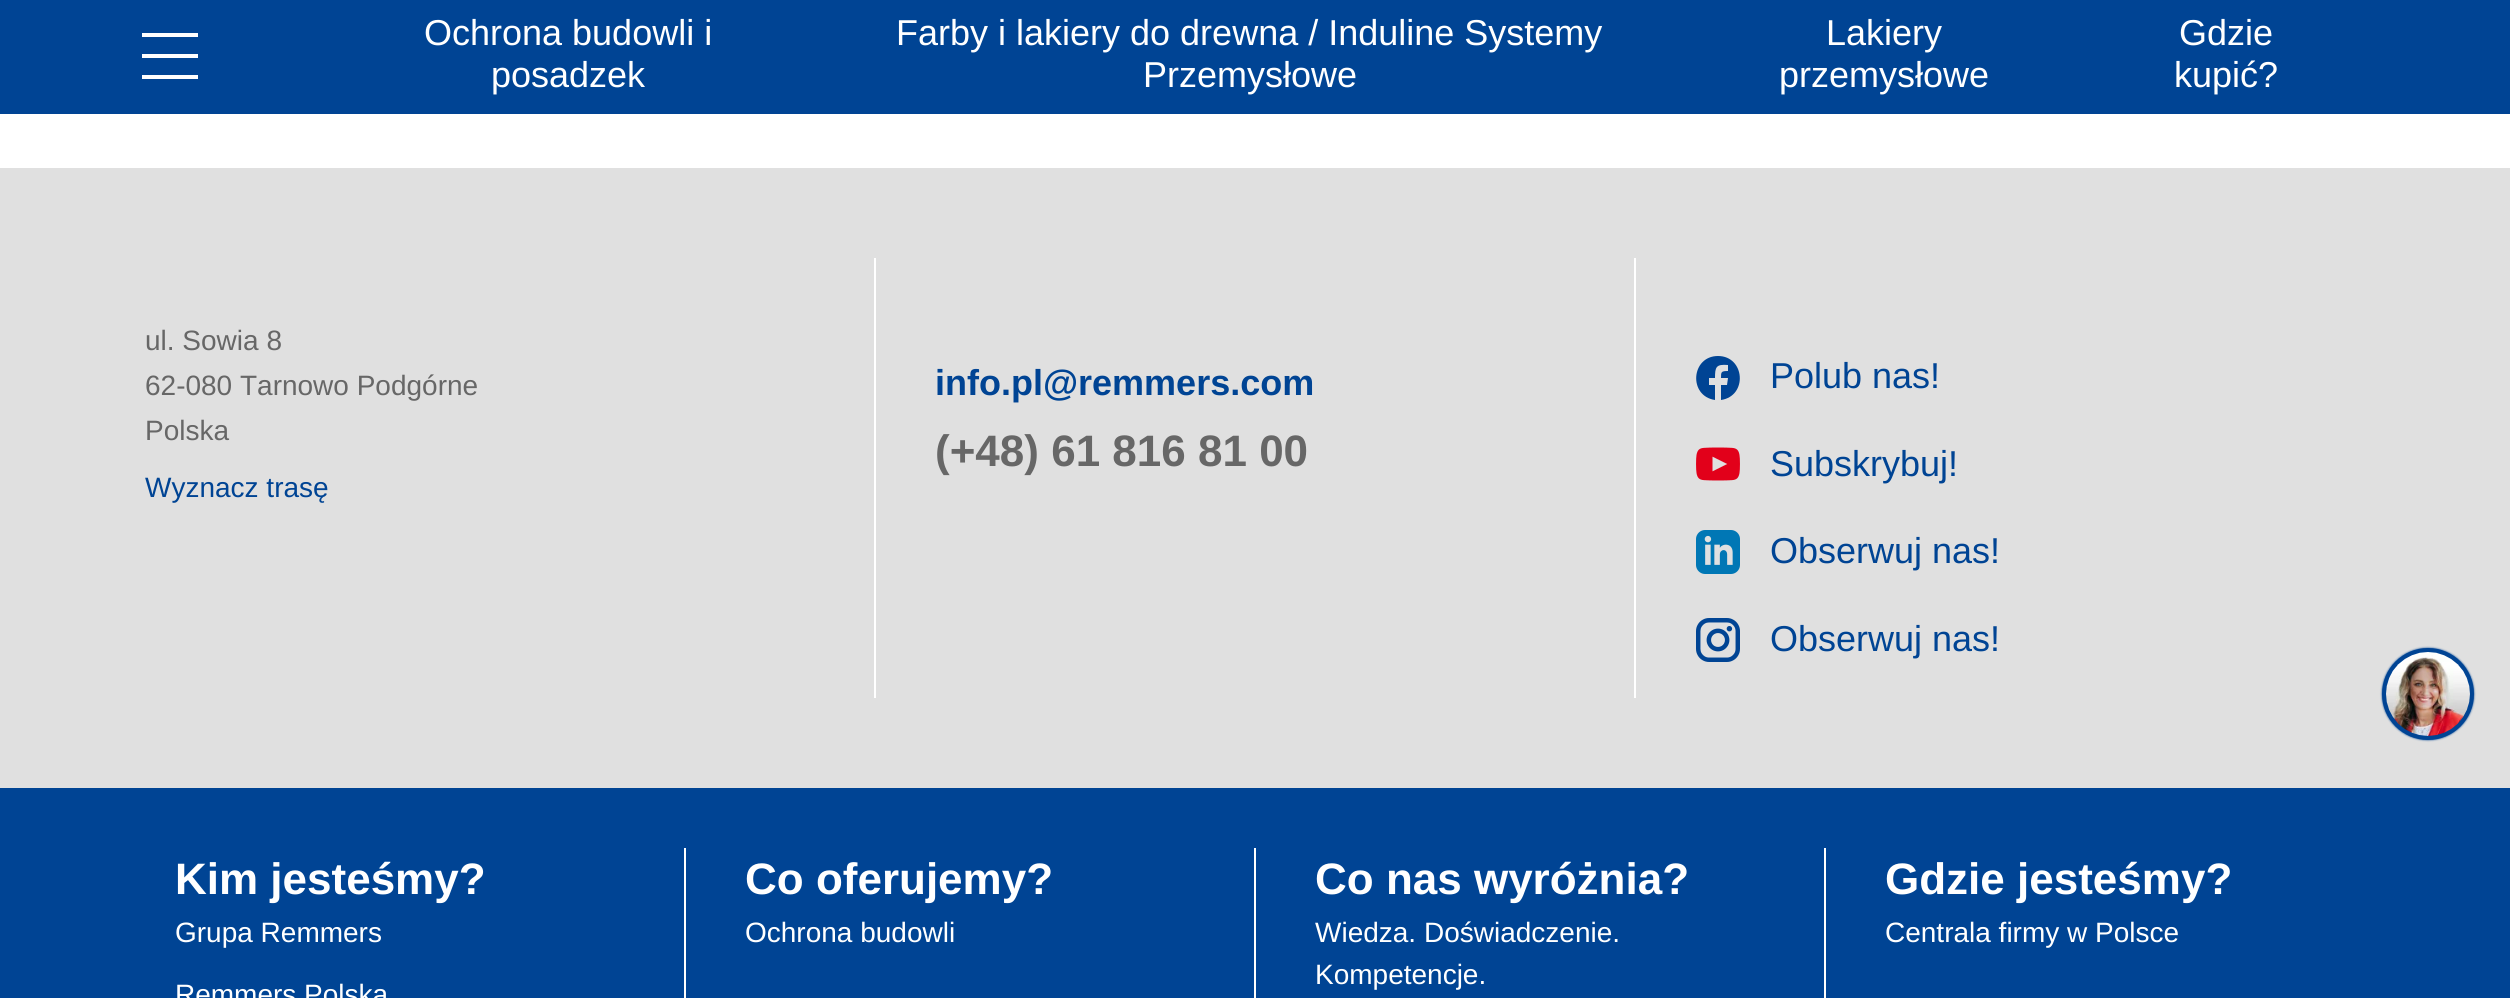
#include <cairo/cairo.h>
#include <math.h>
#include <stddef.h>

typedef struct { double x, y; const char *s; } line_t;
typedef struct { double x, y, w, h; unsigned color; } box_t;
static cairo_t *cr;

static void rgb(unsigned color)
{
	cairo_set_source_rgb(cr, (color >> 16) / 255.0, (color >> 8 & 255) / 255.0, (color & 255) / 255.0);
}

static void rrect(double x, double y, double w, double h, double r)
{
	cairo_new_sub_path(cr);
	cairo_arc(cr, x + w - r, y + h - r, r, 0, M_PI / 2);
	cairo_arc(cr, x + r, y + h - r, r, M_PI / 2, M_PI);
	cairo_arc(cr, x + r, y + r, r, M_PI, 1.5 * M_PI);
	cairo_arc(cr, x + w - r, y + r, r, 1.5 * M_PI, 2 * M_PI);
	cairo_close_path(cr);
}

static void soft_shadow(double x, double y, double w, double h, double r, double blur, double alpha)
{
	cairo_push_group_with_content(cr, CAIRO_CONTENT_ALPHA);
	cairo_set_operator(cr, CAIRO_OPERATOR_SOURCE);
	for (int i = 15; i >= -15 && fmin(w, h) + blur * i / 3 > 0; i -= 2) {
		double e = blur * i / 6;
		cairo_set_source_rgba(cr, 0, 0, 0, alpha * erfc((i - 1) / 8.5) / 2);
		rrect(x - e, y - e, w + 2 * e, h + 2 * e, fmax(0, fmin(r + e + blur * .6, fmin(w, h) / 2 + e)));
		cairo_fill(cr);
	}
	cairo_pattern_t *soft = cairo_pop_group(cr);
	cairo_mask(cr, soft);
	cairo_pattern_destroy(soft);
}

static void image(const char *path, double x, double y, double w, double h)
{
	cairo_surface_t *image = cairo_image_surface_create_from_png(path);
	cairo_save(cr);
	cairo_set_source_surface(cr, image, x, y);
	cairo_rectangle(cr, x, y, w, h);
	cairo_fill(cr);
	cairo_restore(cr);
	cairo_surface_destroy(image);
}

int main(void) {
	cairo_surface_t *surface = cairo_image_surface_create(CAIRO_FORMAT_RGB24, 2510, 998);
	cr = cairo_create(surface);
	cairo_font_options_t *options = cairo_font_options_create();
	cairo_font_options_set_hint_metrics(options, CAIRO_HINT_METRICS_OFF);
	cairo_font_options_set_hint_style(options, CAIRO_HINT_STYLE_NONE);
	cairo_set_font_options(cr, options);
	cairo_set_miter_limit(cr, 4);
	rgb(0xffffff);
	cairo_paint(cr);
	rgb(0x004494);
	cairo_rectangle(cr, 0, 0, 2510, 114);
	cairo_fill(cr);
	rgb(0xffffff);
	cairo_new_path(cr);
	cairo_move_to(cr, 142, 54);
	cairo_line_to(cr, 198, 54);
	cairo_line_to(cr, 198, 58);
	cairo_line_to(cr, 142, 58);
	cairo_close_path(cr);
	cairo_move_to(cr, 142, 33);
	cairo_line_to(cr, 198, 33);
	cairo_line_to(cr, 198, 37);
	cairo_line_to(cr, 142, 37);
	cairo_close_path(cr);
	cairo_move_to(cr, 142, 75);
	cairo_line_to(cr, 198, 75);
	cairo_line_to(cr, 198, 79);
	cairo_line_to(cr, 142, 79);
	cairo_close_path(cr);
	cairo_fill(cr);
	{
		static const box_t items[] = {
			{0, 168, 2510, 620, 0xe0e0e0},
			{874, 258, 2, 440, 0xffffff},
			{1634, 258, 2, 440, 0xffffff},
		};
		for (size_t i = 0; i < sizeof items / sizeof *items; i++) {
			rgb(items[i].color);
			cairo_rectangle(cr, items[i].x, items[i].y, items[i].w, items[i].h);
			cairo_fill(cr);
		}
	}
	rgb(0x004494);
	cairo_new_path(cr);
	cairo_move_to(cr, 1718, 356);
	cairo_curve_to(cr, 1691, 356, 1688, 396, 1715, 400);
	cairo_line_to(cr, 1715, 385);
	cairo_line_to(cr, 1709, 385);
	cairo_line_to(cr, 1709, 378);
	cairo_line_to(cr, 1715, 378);
	cairo_curve_to(cr, 1715, 367, 1716, 364, 1728, 365);
	cairo_line_to(cr, 1728, 371);
	cairo_curve_to(cr, 1721, 371, 1721, 372, 1721, 378);
	cairo_line_to(cr, 1728, 378);
	cairo_line_to(cr, 1727, 385);
	cairo_line_to(cr, 1721, 385);
	cairo_line_to(cr, 1721, 400);
	cairo_curve_to(cr, 1748, 396, 1745, 356, 1718, 356);
	cairo_close_path(cr);
	cairo_fill(cr);
	image("img/1.png", 1696, 447, 44, 34);
	image("img/2.png", 1696, 530, 44, 44);
	image("img/3.png", 1696, 618, 44, 44);
	rgb(0x004494);
	soft_shadow(2382, 648, 92, 92, 46, 1, 1);
	cairo_arc(cr, 2428, 694, 44, 0, 2 * M_PI);
	rgb(0x004494);
	cairo_set_line_width(cr, 4);
	cairo_stroke(cr);
	image("img/4.png", 2386, 652, 84, 84);
	{
		static const box_t items[] = {
			{0, 788, 2510, 210, 0x004494},
			{684, 848, 2, 150, 0xffffff},
			{1254, 848, 2, 150, 0xffffff},
			{1824, 848, 2, 150, 0xffffff},
		};
		for (size_t i = 0; i < sizeof items / sizeof *items; i++) {
			rgb(items[i].color);
			cairo_rectangle(cr, items[i].x, items[i].y, items[i].w, items[i].h);
			cairo_fill(cr);
		}
	}
	cairo_select_font_face(cr, "Liberation Sans", CAIRO_FONT_SLANT_NORMAL, CAIRO_FONT_WEIGHT_NORMAL);
	cairo_set_font_size(cr, 36);
	{
		static const line_t items[] = {
			{424, 45, "Ochrona budowli i"},
			{491, 87, "posadzek"},
			{896, 45, "Farby i lakiery do drewna / Induline Systemy"},
			{1143, 87, "Przemysłowe"},
			{1826, 45, "Lakiery"},
			{1779, 87, "przemysłowe"},
			{2179, 45, "Gdzie"},
			{2174, 87, "kupić?"},
		};
		for (size_t i = 0; i < sizeof items / sizeof *items; i++) {
			cairo_move_to(cr, items[i].x, items[i].y);
			cairo_show_text(cr, items[i].s);
		}
	}
	cairo_set_font_size(cr, 28);
	rgb(0x676767);
	{
		static const line_t items[] = {
			{145, 350, "ul. Sowia 8"},
			{145, 395, "62-080 Tarnowo Podgórne"},
			{145, 440, "Polska"},
		};
		for (size_t i = 0; i < sizeof items / sizeof *items; i++) {
			cairo_move_to(cr, items[i].x, items[i].y);
			cairo_show_text(cr, items[i].s);
		}
	}
	rgb(0x004494);
	cairo_move_to(cr, 145, 497);
	cairo_show_text(cr, "Wyznacz trasę");
	cairo_select_font_face(cr, "Liberation Sans", CAIRO_FONT_SLANT_NORMAL, CAIRO_FONT_WEIGHT_BOLD);
	cairo_set_font_size(cr, 36);
	cairo_move_to(cr, 935, 395);
	cairo_show_text(cr, "info.pl@remmers.com");
	cairo_set_font_size(cr, 44);
	rgb(0x676767);
	cairo_move_to(cr, 935, 466);
	cairo_show_text(cr, "(+48) 61 816 81 00");
	cairo_select_font_face(cr, "Liberation Sans", CAIRO_FONT_SLANT_NORMAL, CAIRO_FONT_WEIGHT_NORMAL);
	cairo_set_font_size(cr, 36);
	rgb(0x004494);
	{
		static const line_t items[] = {
			{1770, 388, "Polub nas!"},
			{1770, 476, "Subskrybuj!"},
			{1770, 563, "Obserwuj nas!"},
			{1770, 651, "Obserwuj nas!"},
		};
		for (size_t i = 0; i < sizeof items / sizeof *items; i++) {
			cairo_move_to(cr, items[i].x, items[i].y);
			cairo_show_text(cr, items[i].s);
		}
	}
	cairo_select_font_face(cr, "Liberation Sans", CAIRO_FONT_SLANT_NORMAL, CAIRO_FONT_WEIGHT_BOLD);
	cairo_set_font_size(cr, 44);
	rgb(0xffffff);
	cairo_move_to(cr, 175, 894);
	cairo_show_text(cr, "Kim jesteśmy?");
	cairo_select_font_face(cr, "Liberation Sans", CAIRO_FONT_SLANT_NORMAL, CAIRO_FONT_WEIGHT_NORMAL);
	cairo_set_font_size(cr, 28);
	cairo_move_to(cr, 175, 942);
	cairo_show_text(cr, "Grupa Remmers");
	cairo_move_to(cr, 175, 1004);
	cairo_show_text(cr, "Remmers Polska");
	cairo_select_font_face(cr, "Liberation Sans", CAIRO_FONT_SLANT_NORMAL, CAIRO_FONT_WEIGHT_BOLD);
	cairo_set_font_size(cr, 44);
	cairo_move_to(cr, 745, 894);
	cairo_show_text(cr, "Co oferujemy?");
	cairo_select_font_face(cr, "Liberation Sans", CAIRO_FONT_SLANT_NORMAL, CAIRO_FONT_WEIGHT_NORMAL);
	cairo_set_font_size(cr, 28);
	cairo_move_to(cr, 745, 942);
	cairo_show_text(cr, "Ochrona budowli");
	cairo_select_font_face(cr, "Liberation Sans", CAIRO_FONT_SLANT_NORMAL, CAIRO_FONT_WEIGHT_BOLD);
	cairo_set_font_size(cr, 44);
	cairo_move_to(cr, 1315, 894);
	cairo_show_text(cr, "Co nas wyróżnia?");
	cairo_select_font_face(cr, "Liberation Sans", CAIRO_FONT_SLANT_NORMAL, CAIRO_FONT_WEIGHT_NORMAL);
	cairo_set_font_size(cr, 28);
	cairo_move_to(cr, 1315, 942);
	cairo_show_text(cr, "Wiedza. Doświadczenie.");
	cairo_move_to(cr, 1315, 984);
	cairo_show_text(cr, "Kompetencje.");
	cairo_select_font_face(cr, "Liberation Sans", CAIRO_FONT_SLANT_NORMAL, CAIRO_FONT_WEIGHT_BOLD);
	cairo_set_font_size(cr, 44);
	cairo_move_to(cr, 1885, 894);
	cairo_show_text(cr, "Gdzie jesteśmy?");
	cairo_select_font_face(cr, "Liberation Sans", CAIRO_FONT_SLANT_NORMAL, CAIRO_FONT_WEIGHT_NORMAL);
	cairo_set_font_size(cr, 28);
	cairo_move_to(cr, 1885, 942);
	cairo_show_text(cr, "Centrala firmy w Polsce");
	cairo_surface_write_to_png(surface, "page.png");
	cairo_font_options_destroy(options);
	cairo_destroy(cr);
	cairo_surface_destroy(surface);
	return 0;
}
